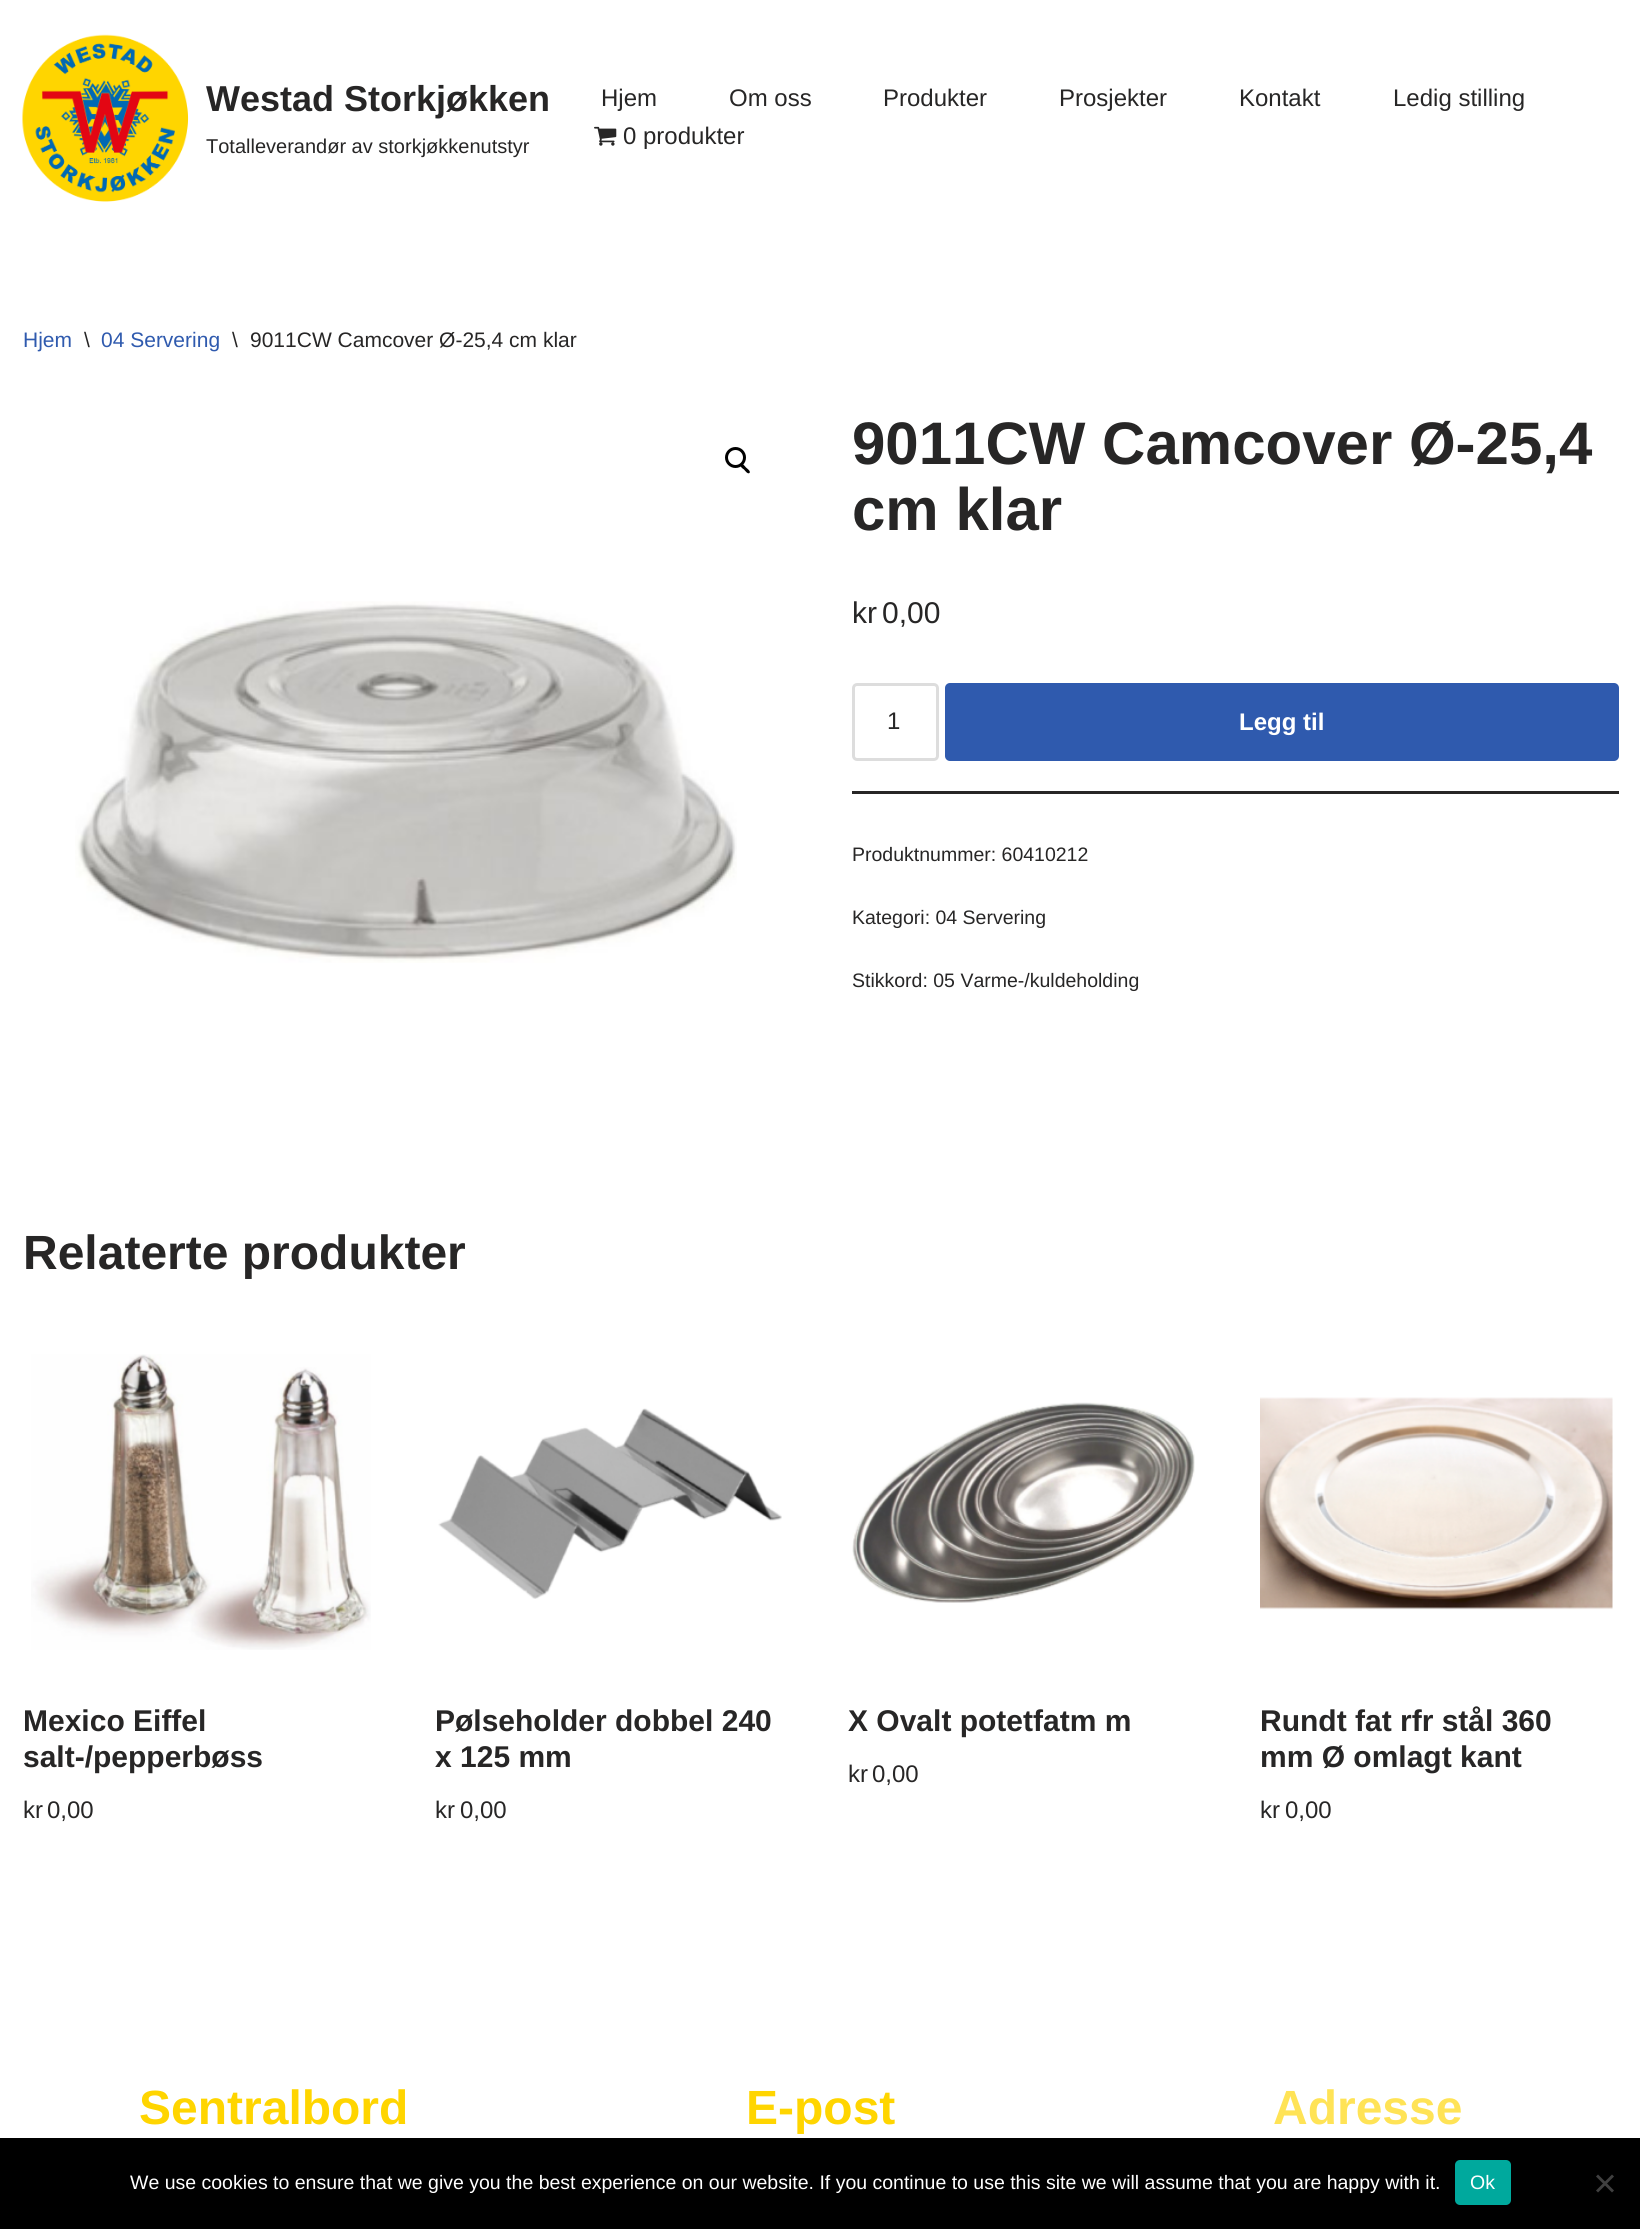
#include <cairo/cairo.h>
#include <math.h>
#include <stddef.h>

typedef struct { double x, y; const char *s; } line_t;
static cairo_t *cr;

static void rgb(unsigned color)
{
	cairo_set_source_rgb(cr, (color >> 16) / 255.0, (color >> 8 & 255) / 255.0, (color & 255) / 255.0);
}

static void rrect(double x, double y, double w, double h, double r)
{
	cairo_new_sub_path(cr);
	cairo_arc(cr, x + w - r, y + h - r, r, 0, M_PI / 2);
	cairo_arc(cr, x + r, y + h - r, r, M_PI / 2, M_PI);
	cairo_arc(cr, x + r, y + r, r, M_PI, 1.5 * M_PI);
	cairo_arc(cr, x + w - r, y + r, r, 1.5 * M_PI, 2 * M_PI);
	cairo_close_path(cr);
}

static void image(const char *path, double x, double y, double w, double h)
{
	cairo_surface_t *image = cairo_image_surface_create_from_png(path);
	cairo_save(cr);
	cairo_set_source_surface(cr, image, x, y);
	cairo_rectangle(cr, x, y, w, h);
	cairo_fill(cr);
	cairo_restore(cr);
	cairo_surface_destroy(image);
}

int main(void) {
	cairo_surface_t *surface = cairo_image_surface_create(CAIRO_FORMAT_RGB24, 1640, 2229);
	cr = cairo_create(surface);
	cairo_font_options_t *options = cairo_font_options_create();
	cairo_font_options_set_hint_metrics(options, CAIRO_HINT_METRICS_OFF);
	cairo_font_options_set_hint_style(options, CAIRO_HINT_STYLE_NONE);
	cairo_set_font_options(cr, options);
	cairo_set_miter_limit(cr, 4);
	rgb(0xffffff);
	cairo_paint(cr);
	image("img/1.png", 22, 34, 167, 168);
	image("img/2.png", 594, 126, 23, 20);
	cairo_arc(cr, 735.5, 457.5, 9, 0, 2 * M_PI);
	rgb(0x000000);
	cairo_set_line_width(cr, 3);
	cairo_stroke(cr);
	cairo_new_path(cr);
	cairo_move_to(cr, 741, 464.5);
	cairo_curve_to(cr, 742.5, 462.5, 745, 466.5, 746, 467.5);
	cairo_curve_to(cr, 747, 468.5, 751, 471, 749.5, 473);
	cairo_curve_to(cr, 747.5, 474.5, 745, 470.5, 744, 469.5);
	cairo_curve_to(cr, 743, 469, 739, 466, 741, 464.5);
	cairo_close_path(cr);
	cairo_fill(cr);
	image("img/3.png", 75, 601, 662, 362);
	rgb(0x272626);
	cairo_rectangle(cr, 852, 791, 767, 3);
	cairo_fill(cr);
	rrect(853.5, 684.5, 84, 75, 3.5);
	rgb(0xdddddd);
	cairo_stroke(cr);
	rgb(0x2f5aae);
	rrect(945, 683, 674, 78, 5);
	cairo_fill(cr);
	image("img/4.png", 31, 1354, 340, 296);
	image("img/5.png", 438, 1408, 344, 191);
	image("img/6.png", 852, 1402, 343, 201);
	image("img/7.png", 1260, 1397, 353, 213);
	rgb(0x000000);
	cairo_rectangle(cr, 0, 2138, 1640, 91);
	cairo_fill(cr);
	rgb(0x00a99d);
	rrect(1455, 2160, 56, 45, 5);
	cairo_fill(cr);
	rgb(0x404040);
	cairo_new_path(cr);
	cairo_move_to(cr, 1612, 2174.5);
	cairo_line_to(cr, 1614, 2176.5);
	cairo_line_to(cr, 1598, 2192.5);
	cairo_line_to(cr, 1596, 2190.5);
	cairo_close_path(cr);
	cairo_fill(cr);
	cairo_new_path(cr);
	cairo_move_to(cr, 1596, 2176.5);
	cairo_line_to(cr, 1598, 2174.5);
	cairo_line_to(cr, 1614, 2190.5);
	cairo_line_to(cr, 1612, 2192.5);
	cairo_close_path(cr);
	cairo_fill(cr);
	cairo_select_font_face(cr, "Liberation Sans", CAIRO_FONT_SLANT_NORMAL, CAIRO_FONT_WEIGHT_BOLD);
	cairo_set_font_size(cr, 36);
	rgb(0x272626);
	cairo_move_to(cr, 206, 111);
	cairo_show_text(cr, "Westad Storkjøkken");
	cairo_select_font_face(cr, "Liberation Sans", CAIRO_FONT_SLANT_NORMAL, CAIRO_FONT_WEIGHT_NORMAL);
	cairo_set_font_size(cr, 20);
	cairo_move_to(cr, 206, 153);
	cairo_show_text(cr, "Totalleverandør av storkjøkkenutstyr");
	cairo_set_font_size(cr, 24);
	{
		static const line_t items[] = {
			{601, 106, "Hjem"},
			{729, 106, "Om oss"},
			{883, 106, "Produkter"},
			{1059, 106, "Prosjekter"},
			{1239, 106, "Kontakt"},
			{1393, 106, "Ledig stilling"},
			{623, 144, "0 produkter"},
		};
		for (size_t i = 0; i < sizeof items / sizeof *items; i++) {
			cairo_move_to(cr, items[i].x, items[i].y);
			cairo_show_text(cr, items[i].s);
		}
	}
	cairo_set_font_size(cr, 21);
	rgb(0x2f5aae);
	cairo_move_to(cr, 23, 347);
	cairo_show_text(cr, "Hjem");
	rgb(0x272626);
	cairo_move_to(cr, 84, 347);
	cairo_show_text(cr, "\\");
	rgb(0x2f5aae);
	cairo_move_to(cr, 101, 347);
	cairo_show_text(cr, "04 Servering");
	rgb(0x272626);
	cairo_move_to(cr, 232, 347);
	cairo_show_text(cr, "\\");
	cairo_move_to(cr, 250, 347);
	cairo_show_text(cr, "9011CW Camcover Ø-25,4 cm klar");
	cairo_select_font_face(cr, "Liberation Sans", CAIRO_FONT_SLANT_NORMAL, CAIRO_FONT_WEIGHT_BOLD);
	cairo_set_font_size(cr, 60);
	cairo_move_to(cr, 852, 464);
	cairo_show_text(cr, "9011CW Camcover Ø-25,4");
	cairo_move_to(cr, 852, 530);
	cairo_show_text(cr, "cm klar");
	cairo_select_font_face(cr, "Liberation Sans", CAIRO_FONT_SLANT_NORMAL, CAIRO_FONT_WEIGHT_NORMAL);
	cairo_set_font_size(cr, 30);
	cairo_move_to(cr, 852, 623);
	cairo_show_text(cr, "kr");
	cairo_move_to(cr, 882, 623);
	cairo_show_text(cr, "0,00");
	cairo_set_font_size(cr, 24);
	cairo_move_to(cr, 887, 729);
	cairo_show_text(cr, "1");
	cairo_select_font_face(cr, "Liberation Sans", CAIRO_FONT_SLANT_NORMAL, CAIRO_FONT_WEIGHT_BOLD);
	rgb(0xffffff);
	cairo_move_to(cr, 1239, 730);
	cairo_show_text(cr, "Legg til");
	cairo_select_font_face(cr, "Liberation Sans", CAIRO_FONT_SLANT_NORMAL, CAIRO_FONT_WEIGHT_NORMAL);
	cairo_set_font_size(cr, 19.5);
	rgb(0x272626);
	{
		static const line_t items[] = {
			{852, 861, "Produktnummer: 60410212"},
			{852, 924, "Kategori: 04 Servering"},
			{852, 987, "Stikkord: 05 Varme-/kuldeholding"},
		};
		for (size_t i = 0; i < sizeof items / sizeof *items; i++) {
			cairo_move_to(cr, items[i].x, items[i].y);
			cairo_show_text(cr, items[i].s);
		}
	}
	cairo_select_font_face(cr, "Liberation Sans", CAIRO_FONT_SLANT_NORMAL, CAIRO_FONT_WEIGHT_BOLD);
	cairo_set_font_size(cr, 48);
	cairo_move_to(cr, 23, 1269);
	cairo_show_text(cr, "Relaterte produkter");
	cairo_set_font_size(cr, 30);
	cairo_move_to(cr, 23, 1731);
	cairo_show_text(cr, "Mexico Eiffel");
	cairo_move_to(cr, 23, 1767);
	cairo_show_text(cr, "salt-/pepperbøss");
	cairo_select_font_face(cr, "Liberation Sans", CAIRO_FONT_SLANT_NORMAL, CAIRO_FONT_WEIGHT_NORMAL);
	cairo_set_font_size(cr, 24);
	cairo_move_to(cr, 23, 1818);
	cairo_show_text(cr, "kr");
	cairo_move_to(cr, 47, 1818);
	cairo_show_text(cr, "0,00");
	cairo_select_font_face(cr, "Liberation Sans", CAIRO_FONT_SLANT_NORMAL, CAIRO_FONT_WEIGHT_BOLD);
	cairo_set_font_size(cr, 30);
	cairo_move_to(cr, 435, 1731);
	cairo_show_text(cr, "Pølseholder dobbel 240");
	cairo_move_to(cr, 435, 1767);
	cairo_show_text(cr, "x 125 mm");
	cairo_select_font_face(cr, "Liberation Sans", CAIRO_FONT_SLANT_NORMAL, CAIRO_FONT_WEIGHT_NORMAL);
	cairo_set_font_size(cr, 24);
	cairo_move_to(cr, 435, 1818);
	cairo_show_text(cr, "kr");
	cairo_move_to(cr, 460, 1818);
	cairo_show_text(cr, "0,00");
	cairo_select_font_face(cr, "Liberation Sans", CAIRO_FONT_SLANT_NORMAL, CAIRO_FONT_WEIGHT_BOLD);
	cairo_set_font_size(cr, 30);
	cairo_move_to(cr, 848, 1731);
	cairo_show_text(cr, "X Ovalt potetfatm m");
	cairo_select_font_face(cr, "Liberation Sans", CAIRO_FONT_SLANT_NORMAL, CAIRO_FONT_WEIGHT_NORMAL);
	cairo_set_font_size(cr, 24);
	cairo_move_to(cr, 848, 1782);
	cairo_show_text(cr, "kr");
	cairo_move_to(cr, 872, 1782);
	cairo_show_text(cr, "0,00");
	cairo_select_font_face(cr, "Liberation Sans", CAIRO_FONT_SLANT_NORMAL, CAIRO_FONT_WEIGHT_BOLD);
	cairo_set_font_size(cr, 30);
	cairo_move_to(cr, 1260, 1731);
	cairo_show_text(cr, "Rundt fat rfr stål 360");
	cairo_move_to(cr, 1260, 1767);
	cairo_show_text(cr, "mm Ø omlagt kant");
	cairo_select_font_face(cr, "Liberation Sans", CAIRO_FONT_SLANT_NORMAL, CAIRO_FONT_WEIGHT_NORMAL);
	cairo_set_font_size(cr, 24);
	cairo_move_to(cr, 1260, 1818);
	cairo_show_text(cr, "kr");
	cairo_move_to(cr, 1285, 1818);
	cairo_show_text(cr, "0,00");
	cairo_select_font_face(cr, "Liberation Sans", CAIRO_FONT_SLANT_NORMAL, CAIRO_FONT_WEIGHT_BOLD);
	cairo_set_font_size(cr, 48);
	rgb(0xffd500);
	cairo_move_to(cr, 139, 2124);
	cairo_show_text(cr, "Sentralbord");
	cairo_move_to(cr, 746, 2124);
	cairo_show_text(cr, "E-post");
	rgb(0xffe356);
	cairo_move_to(cr, 1273, 2124);
	cairo_show_text(cr, "Adresse");
	cairo_select_font_face(cr, "Liberation Sans", CAIRO_FONT_SLANT_NORMAL, CAIRO_FONT_WEIGHT_NORMAL);
	cairo_set_font_size(cr, 19.5);
	rgb(0xffffff);
	cairo_move_to(cr, 130, 2189);
	cairo_show_text(cr, "We use cookies to ensure that we give you the best experience on our website. If you continue to use this site we will assume that you are happy with it.");
	cairo_move_to(cr, 1470, 2189);
	cairo_show_text(cr, "Ok");
	cairo_surface_write_to_png(surface, "page.png");
	cairo_font_options_destroy(options);
	cairo_destroy(cr);
	cairo_surface_destroy(surface);
	return 0;
}
